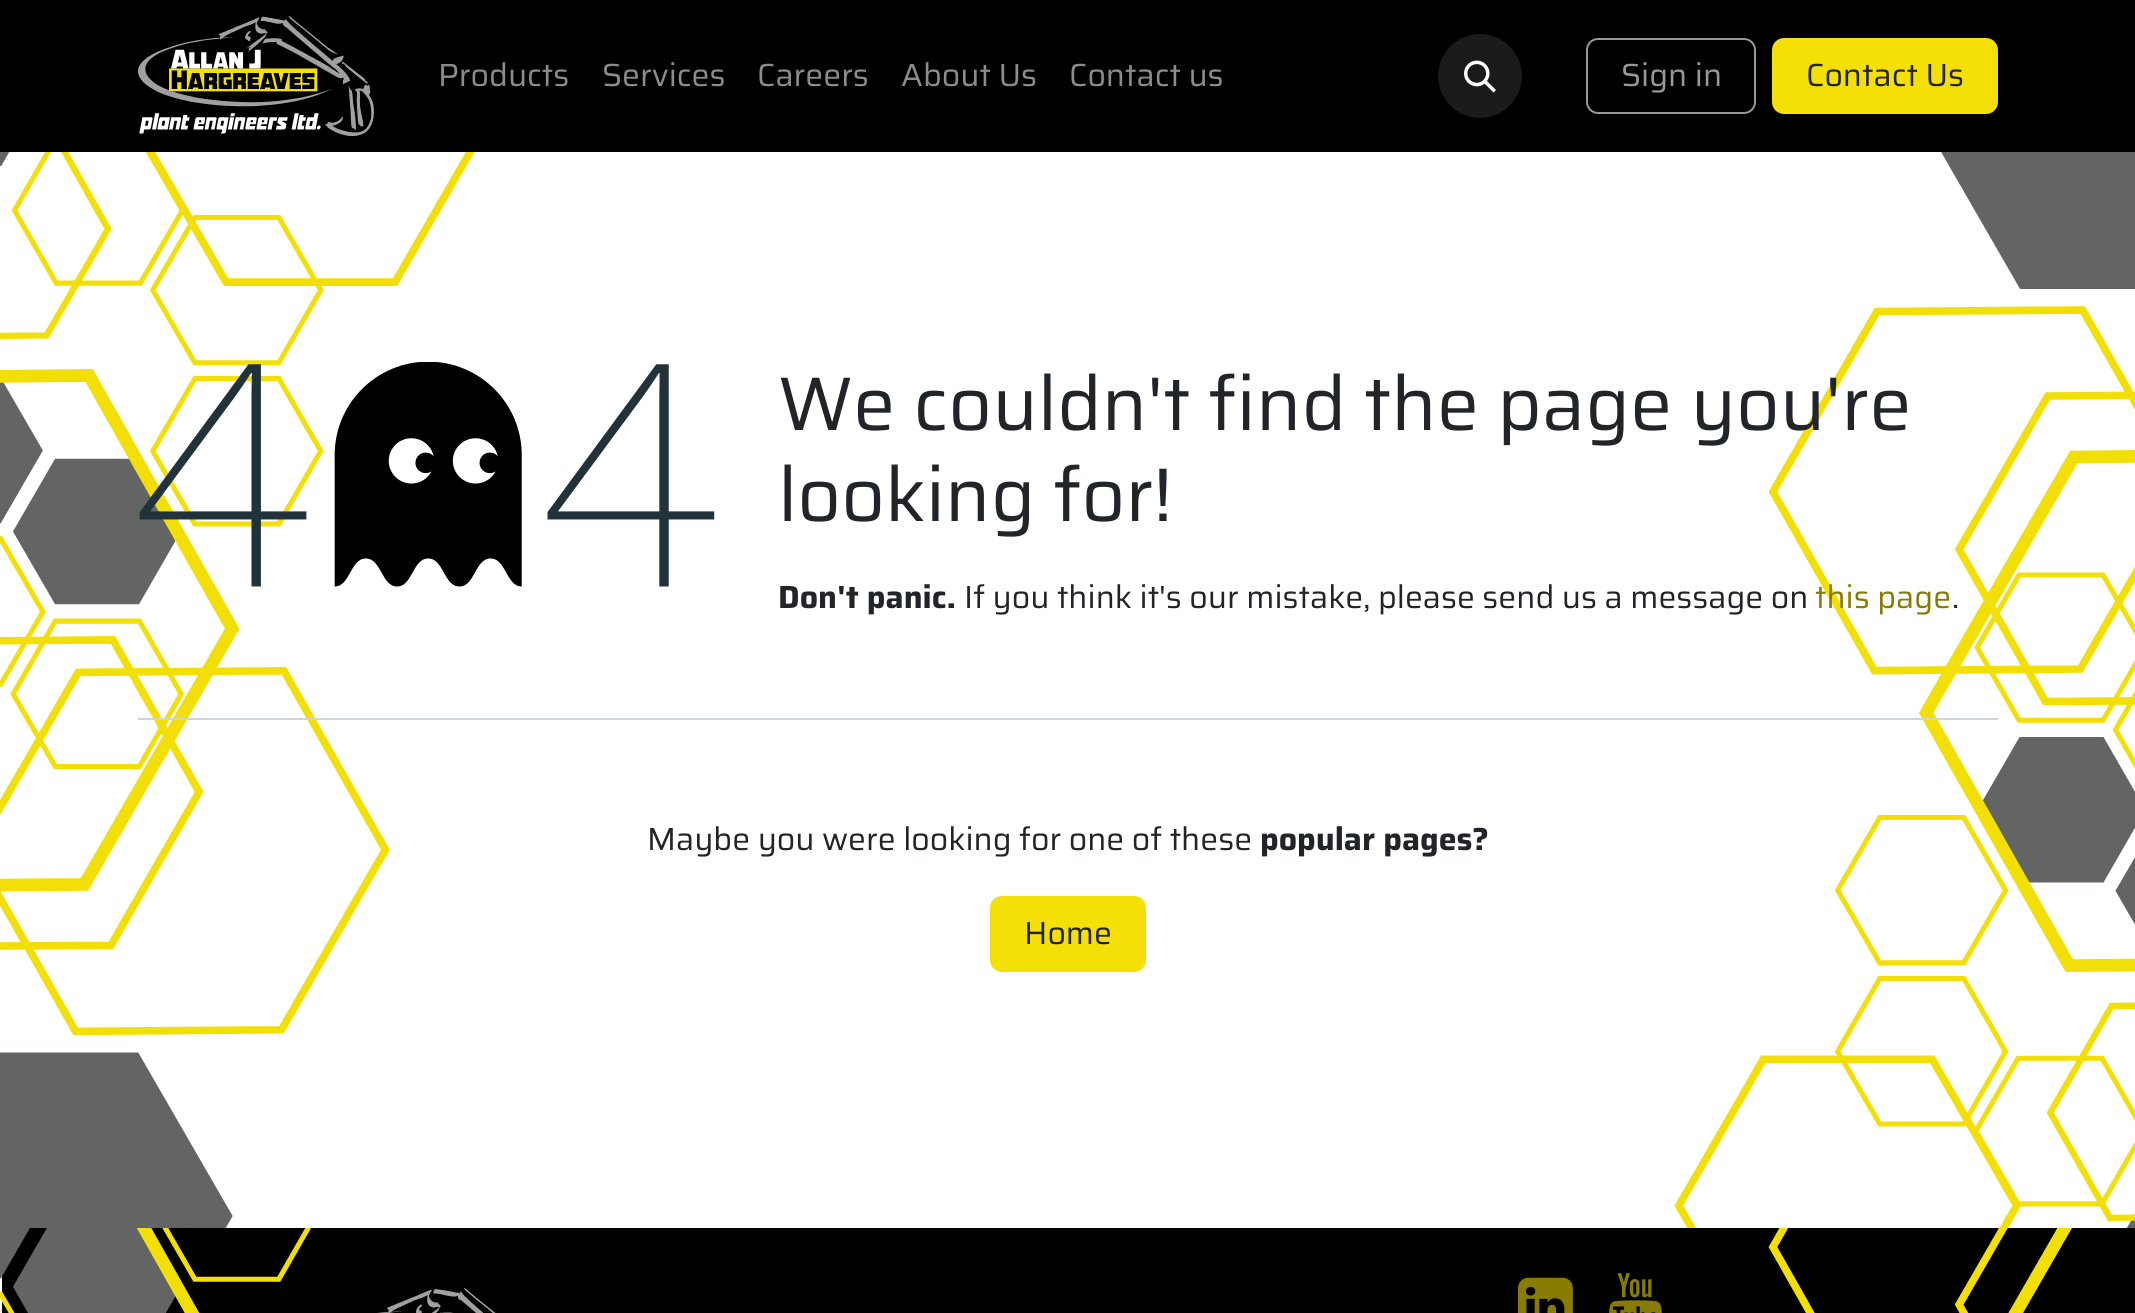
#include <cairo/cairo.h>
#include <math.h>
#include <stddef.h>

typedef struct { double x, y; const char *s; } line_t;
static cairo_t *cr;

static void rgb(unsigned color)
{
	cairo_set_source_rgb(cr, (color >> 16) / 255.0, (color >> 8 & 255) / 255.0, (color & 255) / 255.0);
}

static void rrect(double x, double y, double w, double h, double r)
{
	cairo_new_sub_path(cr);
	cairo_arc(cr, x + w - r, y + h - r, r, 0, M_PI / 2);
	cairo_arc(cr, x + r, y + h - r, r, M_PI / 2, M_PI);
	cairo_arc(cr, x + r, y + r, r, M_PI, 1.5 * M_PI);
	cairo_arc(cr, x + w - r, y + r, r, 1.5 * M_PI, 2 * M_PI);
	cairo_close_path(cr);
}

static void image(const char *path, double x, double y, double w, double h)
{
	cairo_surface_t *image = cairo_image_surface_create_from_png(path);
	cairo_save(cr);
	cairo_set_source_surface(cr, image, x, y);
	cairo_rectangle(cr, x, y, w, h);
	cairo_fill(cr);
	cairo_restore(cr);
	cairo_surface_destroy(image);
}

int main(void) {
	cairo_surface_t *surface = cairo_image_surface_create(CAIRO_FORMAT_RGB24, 2135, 1313);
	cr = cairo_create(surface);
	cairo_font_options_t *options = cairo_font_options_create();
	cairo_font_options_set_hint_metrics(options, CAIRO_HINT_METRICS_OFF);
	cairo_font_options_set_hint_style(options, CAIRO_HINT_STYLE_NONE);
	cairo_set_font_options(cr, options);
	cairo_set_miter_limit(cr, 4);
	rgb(0xffffff);
	cairo_paint(cr);
	image("img/1.png", 0, 152, 2135, 1076);
	rgb(0x000000);
	cairo_rectangle(cr, 0, 0, 2135, 152);
	cairo_fill(cr);
	image("img/2.png", 138, 16, 236, 120);
	rgb(0x1a1a1a);
	cairo_arc(cr, 1480, 76, 42, 0, 2 * M_PI);
	cairo_fill(cr);
	image("img/3.png", 1464, 60, 32, 33);
	rrect(1587, 39, 168, 74, 11);
	rgb(0x989898);
	cairo_stroke(cr);
	rgb(0xf4df06);
	rrect(1773, 39, 224, 74, 11);
	cairo_fill_preserve(cr);
	cairo_stroke(cr);
	image("img/4.png", 139, 362, 576, 225);
	rgb(0xced4da);
	cairo_rectangle(cr, 138, 718, 1860, 2);
	cairo_fill(cr);
	rgb(0xf4df06);
	rrect(991, 897, 154, 74, 11);
	cairo_fill_preserve(cr);
	cairo_stroke(cr);
	image("img/5.png", 0, 1228, 2135, 85);
	image("img/6.png", 377, 1288, 119, 25);
	image("img/7.png", 1518, 1277, 55, 36);
	image("img/8.png", 1609, 1273, 53, 40);
	cairo_select_font_face(cr, "Saira", CAIRO_FONT_SLANT_NORMAL, CAIRO_FONT_WEIGHT_NORMAL);
	cairo_set_font_size(cr, 32);
	rgb(0x8c8c8c);
	{
		static const line_t items[] = {
			{438, 86, "Products"},
			{602, 86, "Services"},
			{757, 86, "Careers"},
			{901, 86, "About Us"},
			{1069, 86, "Contact us"},
		};
		for (size_t i = 0; i < sizeof items / sizeof *items; i++) {
			cairo_move_to(cr, items[i].x, items[i].y);
			cairo_show_text(cr, items[i].s);
		}
	}
	rgb(0x989898);
	cairo_move_to(cr, 1621, 86);
	cairo_show_text(cr, "Sign in");
	rgb(0x212529);
	cairo_move_to(cr, 1806, 86);
	cairo_show_text(cr, "Contact Us");
	cairo_set_font_size(cr, 76);
	cairo_move_to(cr, 778, 430);
	cairo_show_text(cr, "We couldn't find the page you're");
	cairo_move_to(cr, 778, 521);
	cairo_show_text(cr, "looking for!");
	cairo_select_font_face(cr, "Saira", CAIRO_FONT_SLANT_NORMAL, CAIRO_FONT_WEIGHT_BOLD);
	cairo_set_font_size(cr, 32);
	cairo_move_to(cr, 778, 608);
	cairo_show_text(cr, "Don't panic.");
	cairo_select_font_face(cr, "Saira", CAIRO_FONT_SLANT_NORMAL, CAIRO_FONT_WEIGHT_NORMAL);
	cairo_move_to(cr, 964, 608);
	cairo_show_text(cr, "If you think it's our mistake, please send us a message on");
	rgb(0x867b03);
	cairo_move_to(cr, 1815, 608);
	cairo_show_text(cr, "this page");
	rgb(0x212529);
	cairo_move_to(cr, 1952, 608);
	cairo_show_text(cr, ".");
	cairo_move_to(cr, 647, 850);
	cairo_show_text(cr, "Maybe you were looking for one of these");
	cairo_select_font_face(cr, "Saira", CAIRO_FONT_SLANT_NORMAL, CAIRO_FONT_WEIGHT_BOLD);
	cairo_move_to(cr, 1260, 850);
	cairo_show_text(cr, "popular pages?");
	cairo_select_font_face(cr, "Saira", CAIRO_FONT_SLANT_NORMAL, CAIRO_FONT_WEIGHT_NORMAL);
	cairo_move_to(cr, 1024, 944);
	cairo_show_text(cr, "Home");
	cairo_surface_write_to_png(surface, "page.png");
	cairo_font_options_destroy(options);
	cairo_destroy(cr);
	cairo_surface_destroy(surface);
	return 0;
}
